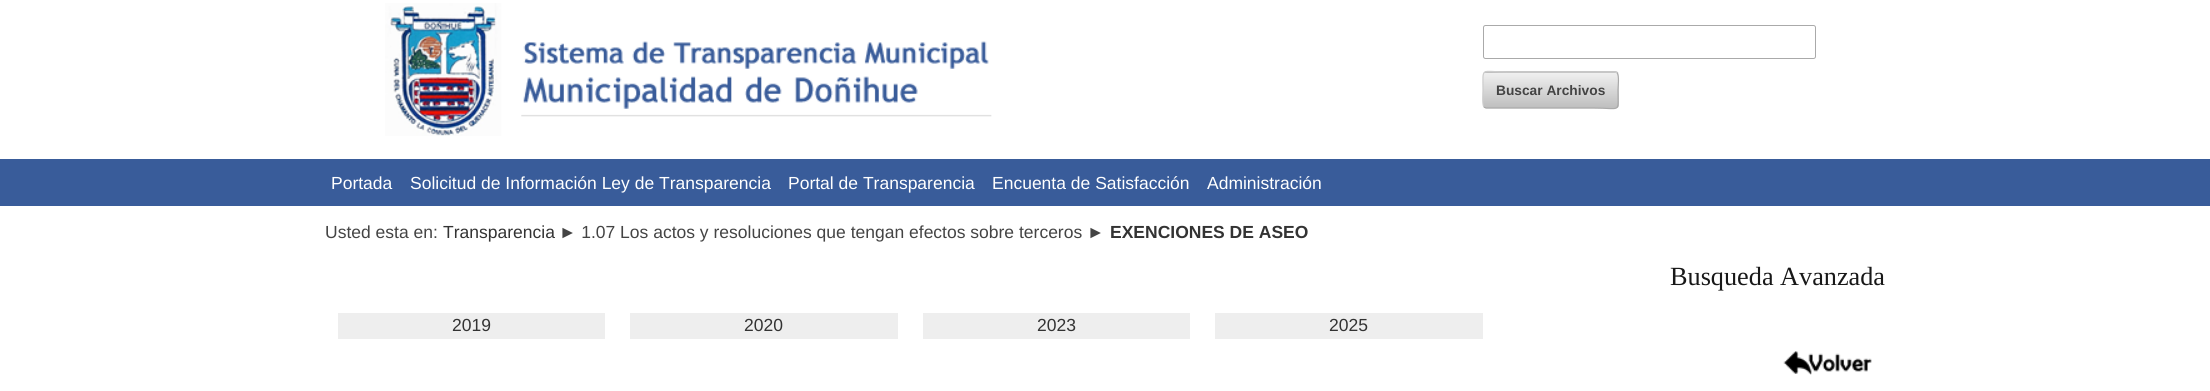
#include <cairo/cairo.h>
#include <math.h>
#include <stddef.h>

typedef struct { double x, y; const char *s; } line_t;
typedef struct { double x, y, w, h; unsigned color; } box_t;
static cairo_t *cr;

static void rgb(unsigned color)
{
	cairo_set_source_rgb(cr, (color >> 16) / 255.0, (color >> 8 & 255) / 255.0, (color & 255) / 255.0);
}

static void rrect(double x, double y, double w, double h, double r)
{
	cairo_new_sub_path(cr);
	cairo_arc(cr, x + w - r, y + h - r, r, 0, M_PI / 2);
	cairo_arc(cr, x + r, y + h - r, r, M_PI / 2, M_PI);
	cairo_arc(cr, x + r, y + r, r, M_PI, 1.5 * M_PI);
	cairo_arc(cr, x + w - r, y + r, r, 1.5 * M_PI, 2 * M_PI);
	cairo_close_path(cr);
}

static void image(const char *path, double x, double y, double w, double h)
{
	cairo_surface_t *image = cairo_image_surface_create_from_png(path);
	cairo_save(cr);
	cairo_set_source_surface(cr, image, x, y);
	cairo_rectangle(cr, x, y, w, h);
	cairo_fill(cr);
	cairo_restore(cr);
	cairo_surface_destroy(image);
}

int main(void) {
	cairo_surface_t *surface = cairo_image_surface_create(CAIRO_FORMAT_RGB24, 2210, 391);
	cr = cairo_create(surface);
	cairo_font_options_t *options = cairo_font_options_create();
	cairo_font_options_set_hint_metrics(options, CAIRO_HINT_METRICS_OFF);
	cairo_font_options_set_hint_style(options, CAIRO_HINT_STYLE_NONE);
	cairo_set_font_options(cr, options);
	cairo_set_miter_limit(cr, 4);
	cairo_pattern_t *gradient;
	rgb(0xffffff);
	cairo_paint(cr);
	image("img/1.png", 385, 3, 607, 133);
	rrect(1483.5, 25.5, 332, 33, 2);
	rgb(0xaaaaaa);
	cairo_set_line_width(cr, 1);
	cairo_stroke(cr);
	rgb(0xeeeeee);
	rrect(1483, 71, 136, 38, 4);
	cairo_fill(cr);
	cairo_save(cr);
	rrect(1483, 71, 136, 38, 4);
	cairo_clip(cr);
	gradient = cairo_pattern_create_linear(1551, 37, 1551, 73);
	cairo_pattern_add_color_stop_rgba(gradient, 0, 1, 1, 1, 0.2);
	cairo_pattern_add_color_stop_rgba(gradient, 1, 0, 0, 0, 0.2);
	cairo_set_source(cr, gradient);
	cairo_pattern_destroy(gradient);
	cairo_rectangle(cr, 1483, 71, 136, 2);
	cairo_fill(cr);
	gradient = cairo_pattern_create_linear(1551, 72, 1551, 108);
	cairo_pattern_add_color_stop_rgba(gradient, 0, 1, 1, 1, 0.2);
	cairo_pattern_add_color_stop_rgba(gradient, 1, 0, 0, 0, 0.2);
	cairo_set_source(cr, gradient);
	cairo_pattern_destroy(gradient);
	cairo_rectangle(cr, 1483, 73, 136, 35);
	cairo_fill(cr);
	cairo_restore(cr);
	cairo_new_path(cr);
	cairo_move_to(cr, 1617, 73);
	cairo_curve_to(cr, 1619.5, 75, 1618, 87, 1618, 90);
	cairo_curve_to(cr, 1618, 114, 1621.5, 108, 1593.5, 108);
	cairo_line_to(cr, 1486, 108);
	cairo_line_to(cr, 1484, 107);
	rgb(0xaaaaaa);
	cairo_set_line_width(cr, 1.2);
	cairo_stroke(cr);
	cairo_new_path(cr);
	cairo_move_to(cr, 1484, 107);
	cairo_curve_to(cr, 1482, 105, 1483, 93, 1483, 90);
	cairo_curve_to(cr, 1483, 66, 1480, 72, 1507.5, 72);
	cairo_line_to(cr, 1615, 72);
	cairo_line_to(cr, 1617, 73);
	rgb(0xcccccc);
	cairo_stroke(cr);
	{
		static const box_t items[] = {
			{0, 159, 2210, 47, 0x395c9a},
			{338, 313, 267, 26, 0xeeeeee},
			{630, 313, 268, 26, 0xeeeeee},
			{923, 313, 267, 26, 0xeeeeee},
			{1215, 313, 268, 26, 0xeeeeee},
		};
		for (size_t i = 0; i < sizeof items / sizeof *items; i++) {
			rgb(items[i].color);
			cairo_rectangle(cr, items[i].x, items[i].y, items[i].w, items[i].h);
			cairo_fill(cr);
		}
	}
	image("img/2.png", 1783, 351, 89, 24);
	cairo_select_font_face(cr, "Liberation Sans", CAIRO_FONT_SLANT_NORMAL, CAIRO_FONT_WEIGHT_BOLD);
	cairo_set_font_size(cr, 13.75);
	rgb(0x444444);
	cairo_move_to(cr, 1496, 95);
	cairo_show_text(cr, "Buscar Archivos");
	cairo_select_font_face(cr, "Liberation Sans", CAIRO_FONT_SLANT_NORMAL, CAIRO_FONT_WEIGHT_NORMAL);
	cairo_set_font_size(cr, 17.5);
	rgb(0xffffff);
	{
		static const line_t items[] = {
			{331, 189, "Portada"},
			{410, 189, "Solicitud de Información Ley de Transparencia"},
			{788, 189, "Portal de Transparencia"},
			{992, 189, "Encuenta de Satisfacción"},
			{1207, 189, "Administración"},
		};
		for (size_t i = 0; i < sizeof items / sizeof *items; i++) {
			cairo_move_to(cr, items[i].x, items[i].y);
			cairo_show_text(cr, items[i].s);
		}
	}
	rgb(0x444444);
	cairo_move_to(cr, 325, 238);
	cairo_show_text(cr, "Usted esta en:");
	rgb(0x333333);
	cairo_move_to(cr, 443, 238);
	cairo_show_text(cr, "Transparencia");
	rgb(0x444444);
	cairo_move_to(cr, 559, 238);
	cairo_show_text(cr, "► 1.07 Los actos y resoluciones que tengan efectos sobre terceros ►");
	cairo_select_font_face(cr, "Liberation Sans", CAIRO_FONT_SLANT_NORMAL, CAIRO_FONT_WEIGHT_BOLD);
	rgb(0x333333);
	cairo_move_to(cr, 1110, 238);
	cairo_show_text(cr, "EXENCIONES DE ASEO");
	cairo_select_font_face(cr, "Liberation Serif", CAIRO_FONT_SLANT_NORMAL, CAIRO_FONT_WEIGHT_NORMAL);
	cairo_set_font_size(cr, 26.25);
	rgb(0x181818);
	cairo_move_to(cr, 1670, 285);
	cairo_show_text(cr, "Busqueda Avanzada");
	cairo_select_font_face(cr, "Liberation Sans", CAIRO_FONT_SLANT_NORMAL, CAIRO_FONT_WEIGHT_NORMAL);
	cairo_set_font_size(cr, 17.5);
	rgb(0x333333);
	{
		static const line_t items[] = {
			{452, 331, "2019"},
			{744, 331, "2020"},
			{1037, 331, "2023"},
			{1329, 331, "2025"},
		};
		for (size_t i = 0; i < sizeof items / sizeof *items; i++) {
			cairo_move_to(cr, items[i].x, items[i].y);
			cairo_show_text(cr, items[i].s);
		}
	}
	cairo_surface_write_to_png(surface, "page.png");
	cairo_font_options_destroy(options);
	cairo_destroy(cr);
	cairo_surface_destroy(surface);
	return 0;
}
